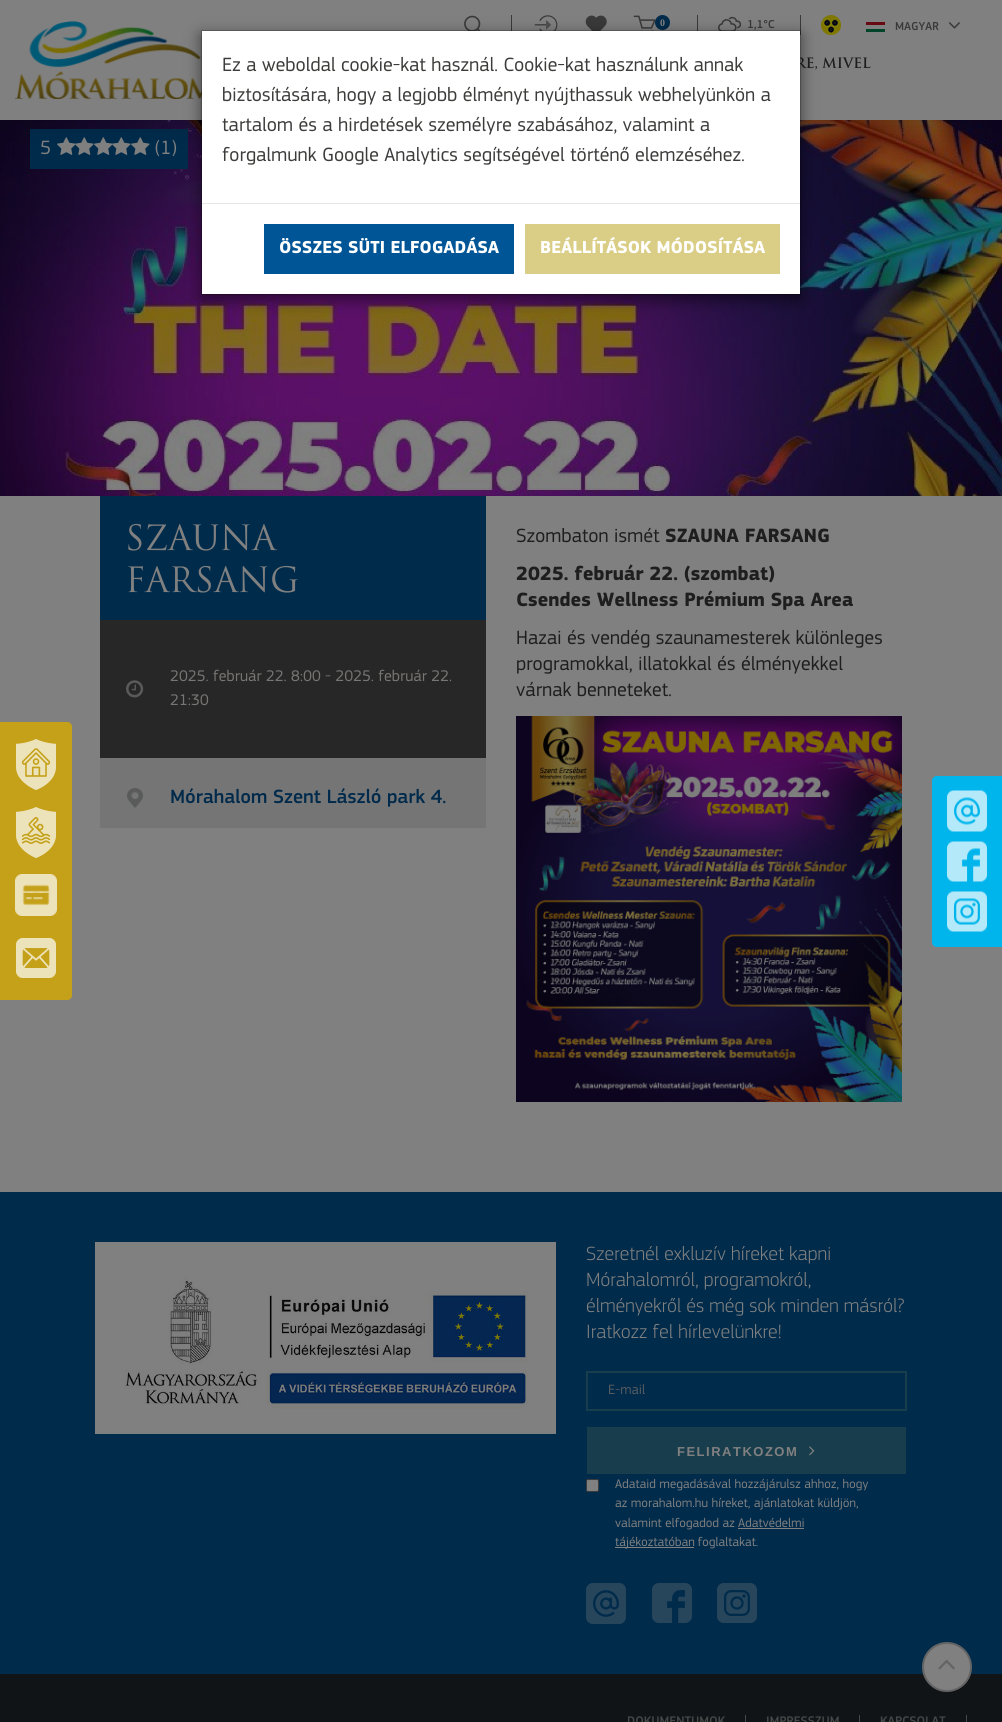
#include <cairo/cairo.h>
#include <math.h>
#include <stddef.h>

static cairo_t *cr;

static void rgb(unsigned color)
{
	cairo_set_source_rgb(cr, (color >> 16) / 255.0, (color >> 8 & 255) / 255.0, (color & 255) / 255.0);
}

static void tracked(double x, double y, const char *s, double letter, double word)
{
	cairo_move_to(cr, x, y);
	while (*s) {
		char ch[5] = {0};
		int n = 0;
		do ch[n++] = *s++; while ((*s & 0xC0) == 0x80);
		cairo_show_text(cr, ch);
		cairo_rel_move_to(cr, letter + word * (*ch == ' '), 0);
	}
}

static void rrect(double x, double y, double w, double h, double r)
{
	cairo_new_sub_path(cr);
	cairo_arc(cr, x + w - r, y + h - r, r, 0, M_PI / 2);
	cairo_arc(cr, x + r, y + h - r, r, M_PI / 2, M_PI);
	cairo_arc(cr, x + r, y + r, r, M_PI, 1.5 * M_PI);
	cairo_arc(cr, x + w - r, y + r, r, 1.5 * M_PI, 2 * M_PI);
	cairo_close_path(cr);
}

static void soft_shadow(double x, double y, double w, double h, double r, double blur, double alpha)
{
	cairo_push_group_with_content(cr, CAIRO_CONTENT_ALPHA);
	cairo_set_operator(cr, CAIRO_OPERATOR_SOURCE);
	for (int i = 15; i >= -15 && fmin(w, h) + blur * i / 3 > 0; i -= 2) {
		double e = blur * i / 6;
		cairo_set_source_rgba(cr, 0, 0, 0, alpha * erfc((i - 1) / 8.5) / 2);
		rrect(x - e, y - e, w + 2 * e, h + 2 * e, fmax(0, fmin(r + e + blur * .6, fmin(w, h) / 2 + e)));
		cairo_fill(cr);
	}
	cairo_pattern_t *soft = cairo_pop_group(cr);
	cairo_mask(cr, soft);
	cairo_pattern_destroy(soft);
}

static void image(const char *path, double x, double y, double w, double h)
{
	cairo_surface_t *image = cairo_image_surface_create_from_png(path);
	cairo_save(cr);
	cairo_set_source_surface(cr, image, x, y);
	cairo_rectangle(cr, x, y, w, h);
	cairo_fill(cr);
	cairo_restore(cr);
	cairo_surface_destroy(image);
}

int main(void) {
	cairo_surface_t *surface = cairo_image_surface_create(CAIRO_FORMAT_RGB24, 1002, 1722);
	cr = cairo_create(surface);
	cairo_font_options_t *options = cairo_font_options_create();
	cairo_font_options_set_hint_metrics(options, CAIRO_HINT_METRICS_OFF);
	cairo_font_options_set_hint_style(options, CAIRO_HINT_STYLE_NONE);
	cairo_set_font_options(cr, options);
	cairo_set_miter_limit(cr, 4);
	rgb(0x808080);
	cairo_paint(cr);
	image("img/25.png", 0, 120, 1002, 376);
	rgb(0x002b4b);
	cairo_rectangle(cr, 30, 129, 158, 40);
	cairo_fill(cr);
	image("img/26.png", 41, 140, 9, 15);
	image("img/27.png", 57, 137, 19, 18);
	image("img/28.png", 75, 137, 19, 18);
	image("img/27.png", 94, 137, 19, 18);
	image("img/28.png", 112, 137, 19, 18);
	image("img/27.png", 131, 137, 19, 18);
	image("img/29.png", 155, 139, 22, 18);
	rgb(0x000000);
	soft_shadow(0, 0, 1002, 120, 0, 15, 0.2);
	rgb(0x808080);
	cairo_rectangle(cr, 0, 0, 1002, 120);
	cairo_fill(cr);
	image("img/7.png", 15, 21, 187, 79);
	image("img/8.png", 464, 15, 17, 16);
	rgb(0x393939);
	cairo_rectangle(cr, 511, 15, 1, 20);
	cairo_fill(cr);
	image("img/9.png", 534, 15, 24, 16);
	image("img/10.png", 585, 15, 22, 16);
	image("img/11.png", 633, 15, 23, 16);
	rgb(0x002b4b);
	cairo_arc(cr, 662.5, 22.5, 7.5, 0, 2 * M_PI);
	cairo_fill(cr);
	rgb(0x393939);
	cairo_rectangle(cr, 697, 15, 1, 20);
	cairo_fill(cr);
	image("img/12.png", 718, 16, 24, 15);
	image("img/13.png", 748, 20, 27, 10);
	cairo_rectangle(cr, 800, 15, 1, 20);
	cairo_fill(cr);
	image("img/14.png", 821, 15, 20, 20);
	image("img/17.png", 800, 57, 71, 13);
	rgb(0x000000);
	soft_shadow(201, 35, 600, 265, 0, 7.5, 0.5);
	rgb(0xffffff);
	cairo_rectangle(cr, 202, 31, 598, 263);
	cairo_fill(cr);
	cairo_rectangle(cr, 201.5, 30.5, 599, 264);
	cairo_set_source_rgba(cr, 0, 0, 0, 0.2);
	cairo_set_line_width(cr, 1);
	cairo_stroke(cr);
	image("img/1.png", 223, 56, 520, 16);
	image("img/2.png", 223, 86, 548, 20);
	image("img/3.png", 222, 116, 488, 19);
	image("img/4.png", 222, 146, 522, 19);
	rgb(0xe5e5e5);
	cairo_rectangle(cr, 202, 203, 598, 1);
	cairo_fill(cr);
	rgb(0x005596);
	cairo_rectangle(cr, 264, 224, 250, 50);
	cairo_fill(cr);
	image("img/5.png", 280, 237, 219, 17);
	rgb(0xdace87);
	cairo_rectangle(cr, 525, 224, 255, 50);
	cairo_fill(cr);
	image("img/6.png", 541, 237, 224, 17);
	rgb(0x670913);
	cairo_rectangle(cr, 866, 22, 19, 3);
	cairo_fill(cr);
	image("img/15.png", 895, 21, 44, 10);
	image("img/16.png", 948, 22, 12, 7);
	rgb(0x004429);
	cairo_rectangle(cr, 866, 29, 19, 3);
	cairo_fill(cr);
	rgb(0xc4a119);
	cairo_new_path(cr);
	cairo_move_to(cr, 0, 722);
	cairo_line_to(cr, 67, 722);
	cairo_curve_to(cr, 70, 722, 72, 724, 72, 727);
	cairo_line_to(cr, 72, 995);
	cairo_curve_to(cr, 72, 998, 70, 1000, 67, 1000);
	cairo_line_to(cr, 0, 1000);
	cairo_close_path(cr);
	cairo_fill(cr);
	image("img/18.png", 16, 739, 40, 51);
	image("img/19.png", 16, 807, 40, 51);
	image("img/20.png", 15, 874, 42, 42);
	image("img/21.png", 16, 938, 40, 40);
	rgb(0x00b5ec);
	cairo_new_path(cr);
	cairo_move_to(cr, 937, 776);
	cairo_line_to(cr, 1002, 776);
	cairo_line_to(cr, 1002, 947);
	cairo_line_to(cr, 937, 947);
	cairo_curve_to(cr, 934, 947, 932, 945, 932, 942);
	cairo_line_to(cr, 932, 781);
	cairo_curve_to(cr, 932, 778, 934, 776, 937, 776);
	cairo_close_path(cr);
	cairo_fill(cr);
	image("img/22.png", 947, 790, 40, 42);
	image("img/23.png", 947, 841, 40, 41);
	image("img/24.png", 947, 891, 40, 41);
	rgb(0x002b4b);
	cairo_rectangle(cr, 100, 496, 386, 124);
	cairo_fill(cr);
	rgb(0x272727);
	cairo_rectangle(cr, 100, 620, 386, 138);
	cairo_fill(cr);
	image("img/30.png", 170, 669, 282, 13);
	image("img/31.png", 126, 680, 18, 18);
	image("img/32.png", 170, 694, 39, 12);
	rgb(0x757575);
	cairo_rectangle(cr, 100, 758, 386, 70);
	cairo_fill(cr);
	image("img/33.png", 127, 788, 16, 20);
	image("img/34.png", 171, 788, 275, 19);
	image("img/35.png", 517, 527, 143, 16);
	image("img/36.png", 665, 528, 164, 15);
	image("img/37.png", 516, 564, 259, 19);
	image("img/38.png", 517, 590, 336, 20);
	image("img/39.png", 517, 629, 365, 19);
	image("img/40.png", 517, 655, 326, 19);
	image("img/41.png", 516, 681, 155, 16);
	image("img/42.png", 516, 716, 386, 386);
	rgb(0x002b4b);
	cairo_rectangle(cr, 0, 1192, 1002, 482);
	cairo_fill(cr);
	rgb(0x111416);
	cairo_rectangle(cr, 0, 1674, 1002, 48);
	cairo_fill(cr);
	rgb(0x808080);
	cairo_arc(cr, 947, 1667, 24, 0, 2 * M_PI);
	cairo_fill_preserve(cr);
	rgb(0x656464);
	cairo_set_line_width(cr, 2);
	cairo_stroke(cr);
	image("img/43.png", 938, 1659, 17, 11);
	image("img/44.png", 95, 1242, 461, 192);
	image("img/45.png", 586, 1245, 244, 19);
	image("img/46.png", 587, 1271, 224, 19);
	image("img/47.png", 586, 1297, 318, 19);
	image("img/48.png", 587, 1323, 194, 16);
	cairo_rectangle(cr, 587, 1372, 319, 38);
	rgb(0x183d4c);
	cairo_stroke(cr);
	image("img/49.png", 609, 1384, 36, 11);
	cairo_rectangle(cr, 587, 1427, 319, 47);
	cairo_fill(cr);
	image("img/50.png", 809, 1446, 6, 10);
	rgb(0x808080);
	rrect(586.5, 1479.5, 12, 12, 1.5);
	cairo_fill_preserve(cr);
	rgb(0x3b3b3b);
	cairo_set_line_width(cr, 1);
	cairo_stroke(cr);
	image("img/51.png", 615, 1478, 254, 13);
	image("img/52.png", 615, 1497, 243, 13);
	image("img/53.png", 615, 1517, 120, 13);
	image("img/54.png", 738, 1517, 66, 11);
	rgb(0x808080);
	cairo_rectangle(cr, 738, 1528, 66, 1);
	cairo_fill(cr);
	cairo_rectangle(cr, 615, 1547, 79, 1);
	cairo_fill(cr);
	image("img/55.png", 615, 1536, 80, 13);
	image("img/56.png", 697, 1536, 61, 13);
	image("img/57.png", 586, 1583, 40, 41);
	image("img/58.png", 652, 1583, 40, 40);
	image("img/59.png", 717, 1583, 40, 40);
	image("img/60.png", 627, 1716, 98, 6);
	rgb(0x454848);
	cairo_rectangle(cr, 745, 1715, 1, 7);
	cairo_fill(cr);
	image("img/61.png", 767, 1716, 72, 6);
	cairo_rectangle(cr, 859, 1715, 1, 7);
	cairo_fill(cr);
	image("img/62.png", 880, 1716, 66, 6);
	cairo_rectangle(cr, 966, 1715, 1, 7);
	cairo_fill(cr);
	cairo_select_font_face(cr, "Liberation Serif", CAIRO_FONT_SLANT_NORMAL, CAIRO_FONT_WEIGHT_BOLD);
	cairo_set_font_size(cr, 10);
	rgb(0x808080);
	cairo_move_to(cr, 660, 26);
	cairo_show_text(cr, "0");
	cairo_select_font_face(cr, "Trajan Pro", CAIRO_FONT_SLANT_NORMAL, CAIRO_FONT_WEIGHT_NORMAL);
	cairo_set_font_size(cr, 34);
	cairo_move_to(cr, 125, 550);
	cairo_show_text(cr, "SZAUNA");
	cairo_move_to(cr, 125, 592);
	cairo_show_text(cr, "FARSANG");
	cairo_select_font_face(cr, "Liberation Sans", CAIRO_FONT_SLANT_NORMAL, CAIRO_FONT_WEIGHT_BOLD);
	cairo_set_font_size(cr, 13);
	tracked(677, 1456, "FELIRATKOZOM", 1.5, 0);
	cairo_surface_write_to_png(surface, "page.png");
	cairo_font_options_destroy(options);
	cairo_destroy(cr);
	cairo_surface_destroy(surface);
	return 0;
}
